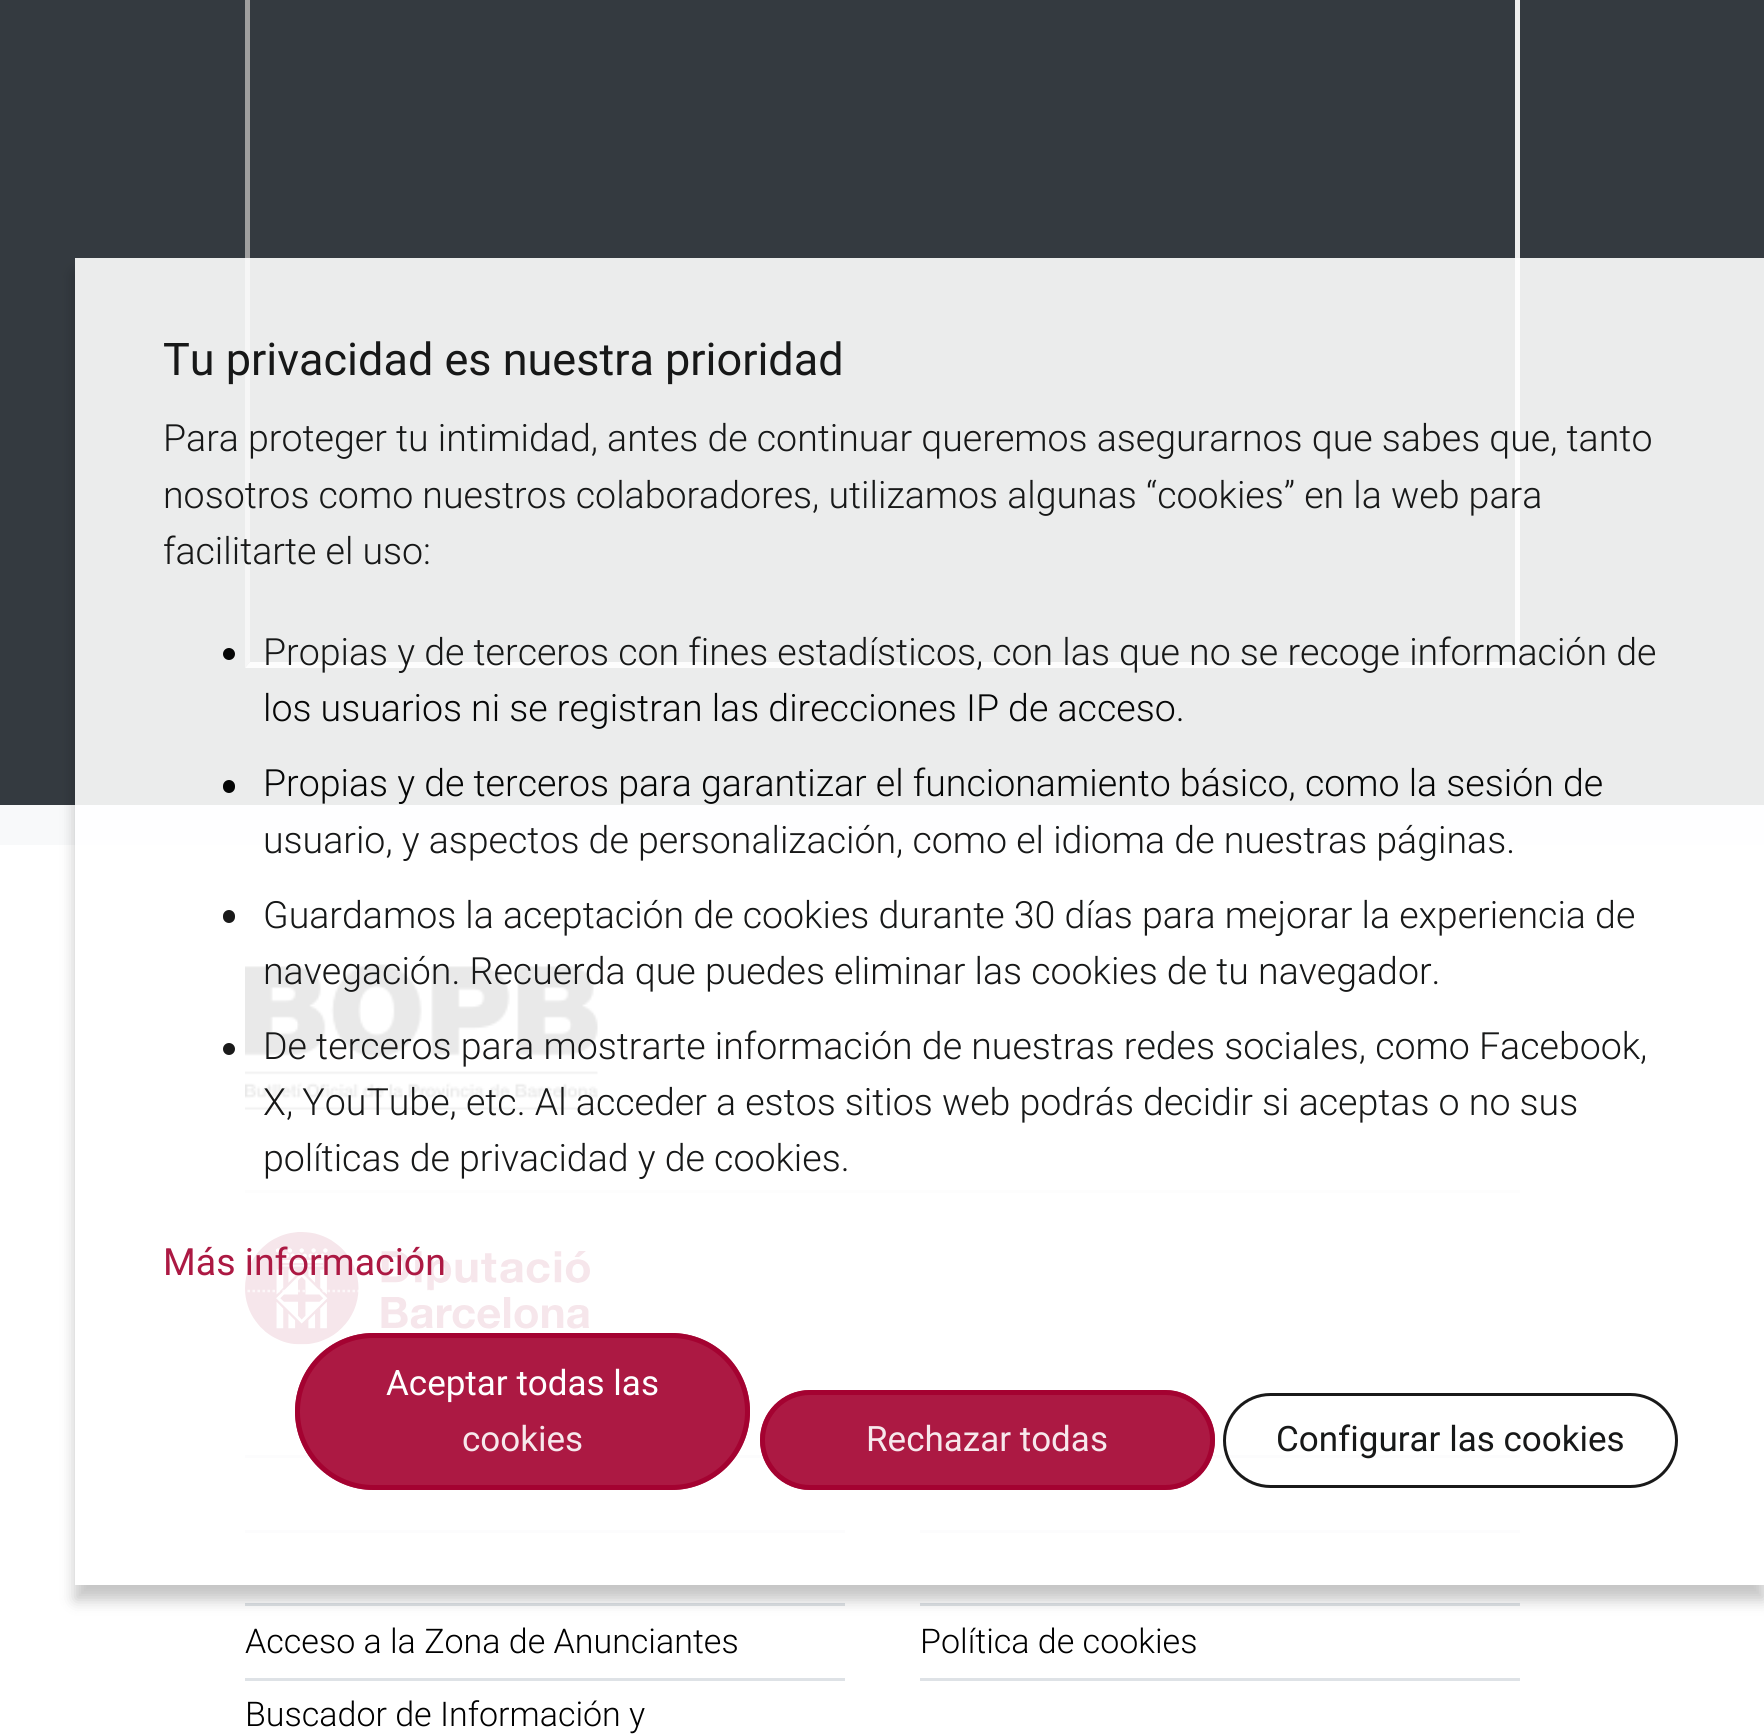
#include <cairo/cairo.h>
#include <math.h>
#include <stddef.h>

typedef struct { double x, y; const char *s; } line_t;
typedef struct { double x, y, w, h; unsigned color; } box_t;
static cairo_t *cr;

static void rgb(unsigned color)
{
	cairo_set_source_rgb(cr, (color >> 16) / 255.0, (color >> 8 & 255) / 255.0, (color & 255) / 255.0);
}

static void rrect(double x, double y, double w, double h, double r)
{
	cairo_new_sub_path(cr);
	cairo_arc(cr, x + w - r, y + h - r, r, 0, M_PI / 2);
	cairo_arc(cr, x + r, y + h - r, r, M_PI / 2, M_PI);
	cairo_arc(cr, x + r, y + r, r, M_PI, 1.5 * M_PI);
	cairo_arc(cr, x + w - r, y + r, r, 1.5 * M_PI, 2 * M_PI);
	cairo_close_path(cr);
}

static void soft_shadow(double x, double y, double w, double h, double r, double blur, double alpha)
{
	cairo_push_group_with_content(cr, CAIRO_CONTENT_ALPHA);
	cairo_set_operator(cr, CAIRO_OPERATOR_SOURCE);
	for (int i = 15; i >= -15 && fmin(w, h) + blur * i / 3 > 0; i -= 2) {
		double e = blur * i / 6;
		cairo_set_source_rgba(cr, 0, 0, 0, alpha * erfc((i - 1) / 8.5) / 2);
		rrect(x - e, y - e, w + 2 * e, h + 2 * e, fmax(0, fmin(r + e + blur * .6, fmin(w, h) / 2 + e)));
		cairo_fill(cr);
	}
	cairo_pattern_t *soft = cairo_pop_group(cr);
	cairo_mask(cr, soft);
	cairo_pattern_destroy(soft);
}

static void image(const char *path, double x, double y, double w, double h)
{
	cairo_surface_t *image = cairo_image_surface_create_from_png(path);
	cairo_save(cr);
	cairo_set_source_surface(cr, image, x, y);
	cairo_rectangle(cr, x, y, w, h);
	cairo_fill(cr);
	cairo_restore(cr);
	cairo_surface_destroy(image);
}

int main(void) {
	cairo_surface_t *surface = cairo_image_surface_create(CAIRO_FORMAT_RGB24, 1764, 1735);
	cr = cairo_create(surface);
	cairo_font_options_t *options = cairo_font_options_create();
	cairo_font_options_set_hint_metrics(options, CAIRO_HINT_METRICS_OFF);
	cairo_font_options_set_hint_style(options, CAIRO_HINT_STYLE_NONE);
	cairo_set_font_options(cr, options);
	cairo_set_miter_limit(cr, 4);
	rgb(0xffffff);
	cairo_paint(cr);
	rgb(0x343a40);
	cairo_rectangle(cr, 0, 0, 1764, 805);
	cairo_fill(cr);
	rgb(0xeeeeee);
	cairo_new_path(cr);
	cairo_move_to(cr, 1520, -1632);
	cairo_line_to(cr, 1520, 668);
	cairo_line_to(cr, 1515, 662);
	cairo_line_to(cr, 1515, -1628);
	cairo_close_path(cr);
	cairo_fill(cr);
	cairo_new_path(cr);
	cairo_move_to(cr, 1520, 668);
	cairo_line_to(cr, 245, 668);
	cairo_line_to(cr, 250, 662);
	cairo_line_to(cr, 1515, 662);
	cairo_close_path(cr);
	cairo_fill(cr);
	rgb(0x9f9f9f);
	cairo_new_path(cr);
	cairo_move_to(cr, 245, 668);
	cairo_line_to(cr, 245, -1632);
	cairo_line_to(cr, 250, -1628);
	cairo_line_to(cr, 250, 662);
	cairo_close_path(cr);
	cairo_fill(cr);
	rgb(0xf8f9fa);
	cairo_rectangle(cr, 0, 805, 1764, 40);
	cairo_fill(cr);
	image("img/1.png", 245, 964, 353, 146);
	rgb(0xe6e6e6);
	cairo_rectangle(cr, 245, 1190, 1275, 3);
	cairo_fill(cr);
	image("img/2.png", 245, 1232, 345, 113);
	{
		static const box_t items[] = {
			{245, 1455, 600, 3, 0xdee2e6},
			{245, 1530, 600, 3, 0xdee2e6},
			{245, 1603, 600, 3, 0xdee2e6},
			{920, 1455, 600, 3, 0xdee2e6},
			{920, 1530, 600, 3, 0xdee2e6},
			{920, 1603, 600, 3, 0xdee2e6},
		};
		for (size_t i = 0; i < sizeof items / sizeof *items; i++) {
			rgb(items[i].color);
			cairo_rectangle(cr, items[i].x, items[i].y, items[i].w, items[i].h);
			cairo_fill(cr);
		}
	}
	cairo_save(cr);
	cairo_set_fill_rule(cr, CAIRO_FILL_RULE_EVEN_ODD);
	cairo_new_path(cr);
	cairo_move_to(cr, 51, 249);
	cairo_line_to(cr, 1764, 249);
	cairo_line_to(cr, 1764, 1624);
	cairo_line_to(cr, 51, 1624);
	cairo_close_path(cr);
	cairo_move_to(cr, 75, 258);
	cairo_line_to(cr, 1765, 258);
	cairo_line_to(cr, 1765, 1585);
	cairo_line_to(cr, 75, 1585);
	cairo_close_path(cr);
	cairo_clip(cr);
	rgb(0x000000);
	soft_shadow(75, 273, 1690, 1327, 0, 7.5, 0.23);
	cairo_restore(cr);
	cairo_set_source_rgba(cr, 1, 1, 1, 0.9);
	cairo_rectangle(cr, 75, 258, 1689, 1275);
	cairo_fill(cr);
	rgb(0x050606);
	cairo_arc(cr, 229, 654, 6, 0, 2 * M_PI);
	cairo_fill(cr);
	rrect(223, 780, 12, 13, 6);
	cairo_fill(cr);
	rgb(0x1a1a1a);
	rrect(223, 910, 12, 13, 6);
	cairo_fill(cr);
	cairo_arc(cr, 229, 1049, 6, 0, 2 * M_PI);
	cairo_fill(cr);
	cairo_new_path(cr);
	cairo_move_to(cr, 162.5, 1291);
	cairo_line_to(cr, 445, 1291);
	cairo_set_source_rgba(cr, 1, 1, 1, 0.68);
	cairo_set_line_width(cr, 2.5);
	cairo_set_dash(cr, (double[]){2.5, 2.5}, 2, 0);
	cairo_stroke(cr);
	cairo_set_source_rgba(cr, 0.639, 0, 0.184, 0.9);
	rrect(295, 1333, 455, 157, 78.5);
	cairo_fill(cr);
	rrect(297.5, 1335.5, 450, 152, 76);
	cairo_set_line_width(cr, 5);
	cairo_set_dash(cr, NULL, 0, 0);
	cairo_stroke(cr);
	rrect(760, 1390, 455, 100, 50);
	cairo_fill(cr);
	rrect(762.5, 1392.5, 450, 95, 47.5);
	cairo_stroke(cr);
	rrect(1224.5, 1394.5, 452, 92, 46);
	cairo_set_source_rgba(cr, 0, 0, 0, 0.9);
	cairo_set_line_width(cr, 3);
	cairo_stroke(cr);
	rgb(0xdee2e6);
	cairo_rectangle(cr, 245, 1678, 600, 3);
	cairo_fill(cr);
	cairo_rectangle(cr, 920, 1678, 600, 3);
	cairo_fill(cr);
	cairo_select_font_face(cr, "Roboto", CAIRO_FONT_SLANT_NORMAL, CAIRO_FONT_WEIGHT_NORMAL);
	cairo_set_font_size(cr, 45);
	rgb(0x171818);
	cairo_move_to(cr, 163, 375);
	cairo_show_text(cr, "Tu privacidad es nuestra prioridad");
	cairo_select_font_face(cr, "Roboto Light", CAIRO_FONT_SLANT_NORMAL, CAIRO_FONT_WEIGHT_NORMAL);
	cairo_set_font_size(cr, 37.5);
	{
		static const line_t items[] = {
			{163, 451, "Para proteger tu intimidad, antes de continuar queremos asegurarnos que sabes que, tanto"},
			{163, 508, "nosotros como nuestros colaboradores, utilizamos algunas “cookies” en la web para"},
			{163, 564, "facilitarte el uso:"},
			{263, 665, "Propias y de terceros con fines estadísticos, con las que no se recoge información de"},
		};
		for (size_t i = 0; i < sizeof items / sizeof *items; i++) {
			cairo_move_to(cr, items[i].x, items[i].y);
			cairo_show_text(cr, items[i].s);
		}
	}
	rgb(0x050606);
	cairo_move_to(cr, 263, 721);
	cairo_show_text(cr, "los usuarios ni se registran las direcciones IP de acceso.");
	cairo_move_to(cr, 263, 796);
	cairo_show_text(cr, "Propias y de terceros para garantizar el funcionamiento básico, como la sesión de");
	rgb(0x171818);
	{
		static const line_t items[] = {
			{263, 853, "usuario, y aspectos de personalización, como el idioma de nuestras páginas."},
			{263, 928, "Guardamos la aceptación de cookies durante 30 días para mejorar la experiencia de"},
			{263, 984, "navegación. Recuerda que puedes eliminar las cookies de tu navegador."},
			{263, 1059, "De terceros para mostrarte información de nuestras redes sociales, como Facebook,"},
			{263, 1115, "X, YouTube, etc. Al acceder a estos sitios web podrás decidir si aceptas o no sus"},
			{263, 1171, "políticas de privacidad y de cookies."},
		};
		for (size_t i = 0; i < sizeof items / sizeof *items; i++) {
			cairo_move_to(cr, items[i].x, items[i].y);
			cairo_show_text(cr, items[i].s);
		}
	}
	cairo_select_font_face(cr, "Roboto", CAIRO_FONT_SLANT_NORMAL, CAIRO_FONT_WEIGHT_NORMAL);
	rgb(0xac1943);
	cairo_move_to(cr, 163, 1275);
	cairo_show_text(cr, "Más información");
	cairo_set_font_size(cr, 35);
	rgb(0xffffff);
	cairo_move_to(cr, 386, 1395);
	cairo_show_text(cr, "Aceptar todas las");
	rgb(0xf7e8ec);
	cairo_move_to(cr, 462, 1451);
	cairo_show_text(cr, "cookies");
	cairo_move_to(cr, 866, 1451);
	cairo_show_text(cr, "Rechazar todas");
	rgb(0x171818);
	cairo_move_to(cr, 1276, 1451);
	cairo_show_text(cr, "Configurar las cookies");
	cairo_select_font_face(cr, "Roboto Light", CAIRO_FONT_SLANT_NORMAL, CAIRO_FONT_WEIGHT_NORMAL);
	cairo_set_font_size(cr, 34);
	rgb(0x000000);
	{
		static const line_t items[] = {
			{245, 1653, "Acceso a la Zona de Anunciantes"},
			{245, 1726, "Buscador de Información y"},
			{920, 1653, "Política de cookies"},
		};
		for (size_t i = 0; i < sizeof items / sizeof *items; i++) {
			cairo_move_to(cr, items[i].x, items[i].y);
			cairo_show_text(cr, items[i].s);
		}
	}
	cairo_surface_write_to_png(surface, "page.png");
	cairo_font_options_destroy(options);
	cairo_destroy(cr);
	cairo_surface_destroy(surface);
	return 0;
}
